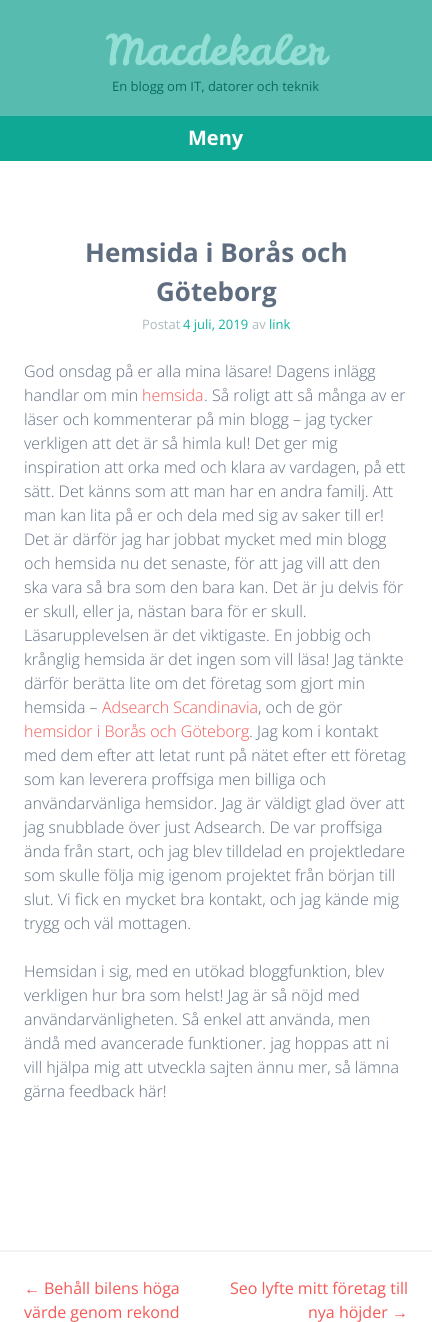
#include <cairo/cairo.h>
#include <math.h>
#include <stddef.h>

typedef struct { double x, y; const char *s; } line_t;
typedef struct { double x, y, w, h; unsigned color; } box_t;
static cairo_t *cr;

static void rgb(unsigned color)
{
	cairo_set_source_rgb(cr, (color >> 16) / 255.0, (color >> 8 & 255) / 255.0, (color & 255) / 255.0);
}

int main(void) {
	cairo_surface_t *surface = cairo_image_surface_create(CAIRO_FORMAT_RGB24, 432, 1322);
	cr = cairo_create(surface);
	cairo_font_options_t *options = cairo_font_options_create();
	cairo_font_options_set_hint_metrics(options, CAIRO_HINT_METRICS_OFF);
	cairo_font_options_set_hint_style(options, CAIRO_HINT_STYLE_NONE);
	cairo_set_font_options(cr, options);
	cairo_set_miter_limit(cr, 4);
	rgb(0xffffff);
	cairo_paint(cr);
	{
		static const box_t items[] = {
			{0, 0, 432, 116, 0x57bcaf},
			{0, 116, 432, 45, 0x0fa895},
			{0, 1250, 432, 2, 0xf1f2f3},
		};
		for (size_t i = 0; i < sizeof items / sizeof *items; i++) {
			rgb(items[i].color);
			cairo_rectangle(cr, items[i].x, items[i].y, items[i].w, items[i].h);
			cairo_fill(cr);
		}
	}
	cairo_select_font_face(cr, "Leckerli One", CAIRO_FONT_SLANT_NORMAL, CAIRO_FONT_WEIGHT_NORMAL);
	cairo_set_font_size(cr, 42);
	rgb(0x93dfd5);
	cairo_move_to(cr, 106, 65);
	cairo_show_text(cr, "Macdekaler");
	cairo_select_font_face(cr, "Open Sans", CAIRO_FONT_SLANT_NORMAL, CAIRO_FONT_WEIGHT_NORMAL);
	cairo_set_font_size(cr, 13);
	rgb(0x0a6a5e);
	cairo_move_to(cr, 112, 91);
	cairo_show_text(cr, "En blogg om IT, datorer och teknik");
	cairo_select_font_face(cr, "Open Sans", CAIRO_FONT_SLANT_NORMAL, CAIRO_FONT_WEIGHT_BOLD);
	cairo_set_font_size(cr, 20);
	rgb(0xffffff);
	cairo_move_to(cr, 188, 145);
	cairo_show_text(cr, "Meny");
	cairo_set_font_size(cr, 26);
	rgb(0x5f6d80);
	cairo_move_to(cr, 85, 262);
	cairo_show_text(cr, "Hemsida i Borås och");
	cairo_move_to(cr, 156, 301);
	cairo_show_text(cr, "Göteborg");
	cairo_select_font_face(cr, "Open Sans", CAIRO_FONT_SLANT_NORMAL, CAIRO_FONT_WEIGHT_NORMAL);
	cairo_set_font_size(cr, 13);
	rgb(0xabbbc0);
	cairo_move_to(cr, 142, 329);
	cairo_show_text(cr, "Postat");
	rgb(0x0fb39e);
	cairo_move_to(cr, 183, 329);
	cairo_show_text(cr, "4 juli, 2019");
	rgb(0xabbbc0);
	cairo_move_to(cr, 252, 329);
	cairo_show_text(cr, "av");
	rgb(0x0fb39e);
	cairo_move_to(cr, 269, 329);
	cairo_show_text(cr, "link");
	cairo_select_font_face(cr, "Open Sans Light", CAIRO_FONT_SLANT_NORMAL, CAIRO_FONT_WEIGHT_NORMAL);
	cairo_set_font_size(cr, 16);
	rgb(0x5f6d80);
	cairo_move_to(cr, 24, 377);
	cairo_show_text(cr, "God onsdag på er alla mina läsare! Dagens inlägg");
	cairo_move_to(cr, 24, 401);
	cairo_show_text(cr, "handlar om min");
	rgb(0xf35955);
	cairo_move_to(cr, 142, 401);
	cairo_show_text(cr, "hemsida");
	rgb(0x5f6d80);
	{
		static const line_t items[] = {
			{204, 401, ". Så roligt att så många av er"},
			{24, 425, "läser och kommenterar på min blogg – jag tycker"},
			{24, 449, "verkligen att det är så himla kul! Det ger mig"},
			{24, 473, "inspiration att orka med och klara av vardagen, på ett"},
			{24, 497, "sätt. Det känns som att man har en andra familj. Att"},
			{24, 521, "man kan lita på er och dela med sig av saker till er!"},
			{24, 545, "Det är därför jag har jobbat mycket med min blogg"},
			{24, 569, "och hemsida nu det senaste, för att jag vill att den"},
			{24, 593, "ska vara så bra som den bara kan. Det är ju delvis för"},
			{24, 617, "er skull, eller ja, nästan bara för er skull."},
			{24, 641, "Läsarupplevelsen är det viktigaste. En jobbig och"},
			{24, 665, "krånglig hemsida är det ingen som vill läsa! Jag tänkte"},
			{24, 689, "därför berätta lite om det företag som gjort min"},
			{24, 713, "hemsida –"},
		};
		for (size_t i = 0; i < sizeof items / sizeof *items; i++) {
			cairo_move_to(cr, items[i].x, items[i].y);
			cairo_show_text(cr, items[i].s);
		}
	}
	rgb(0xf35955);
	cairo_move_to(cr, 102, 713);
	cairo_show_text(cr, "Adsearch Scandinavia");
	rgb(0x5f6d80);
	cairo_move_to(cr, 258, 713);
	cairo_show_text(cr, ", och de gör");
	rgb(0xf35955);
	cairo_move_to(cr, 24, 737);
	cairo_show_text(cr, "hemsidor i Borås och Göteborg");
	rgb(0x5f6d80);
	{
		static const line_t items[] = {
			{249, 737, ". Jag kom i kontakt"},
			{24, 761, "med dem efter att letat runt på nätet efter ett företag"},
			{24, 785, "som kan leverera proffsiga men billiga och"},
			{24, 809, "användarvänliga hemsidor. Jag är väldigt glad över att"},
			{24, 833, "jag snubblade över just Adsearch. De var proffsiga"},
			{24, 857, "ända från start, och jag blev tilldelad en projektledare"},
			{24, 881, "som skulle följa mig igenom projektet från början till"},
			{24, 905, "slut. Vi fick en mycket bra kontakt, och jag kände mig"},
			{24, 929, "trygg och väl mottagen."},
			{24, 977, "Hemsidan i sig, med en utökad bloggfunktion, blev"},
			{24, 1001, "verkligen hur bra som helst! Jag är så nöjd med"},
			{24, 1025, "användarvänligheten. Så enkel att använda, men"},
			{24, 1049, "ändå med avancerade funktioner. jag hoppas att ni"},
			{24, 1073, "vill hjälpa mig att utveckla sajten ännu mer, så lämna"},
			{24, 1097, "gärna feedback här!"},
		};
		for (size_t i = 0; i < sizeof items / sizeof *items; i++) {
			cairo_move_to(cr, items[i].x, items[i].y);
			cairo_show_text(cr, items[i].s);
		}
	}
	cairo_select_font_face(cr, "Liberation Sans", CAIRO_FONT_SLANT_NORMAL, CAIRO_FONT_WEIGHT_NORMAL);
	rgb(0xf35955);
	cairo_move_to(cr, 24, 1294);
	cairo_show_text(cr, "←");
	cairo_select_font_face(cr, "Open Sans", CAIRO_FONT_SLANT_NORMAL, CAIRO_FONT_WEIGHT_NORMAL);
	{
		static const line_t items[] = {
			{44, 1294, "Behåll bilens höga"},
			{24, 1318, "värde genom rekond"},
			{230, 1294, "Seo lyfte mitt företag till"},
			{308, 1318, "nya höjder"},
		};
		for (size_t i = 0; i < sizeof items / sizeof *items; i++) {
			cairo_move_to(cr, items[i].x, items[i].y);
			cairo_show_text(cr, items[i].s);
		}
	}
	cairo_select_font_face(cr, "Liberation Sans", CAIRO_FONT_SLANT_NORMAL, CAIRO_FONT_WEIGHT_NORMAL);
	cairo_move_to(cr, 392, 1318);
	cairo_show_text(cr, "→");
	cairo_surface_write_to_png(surface, "page.png");
	cairo_font_options_destroy(options);
	cairo_destroy(cr);
	cairo_surface_destroy(surface);
	return 0;
}
